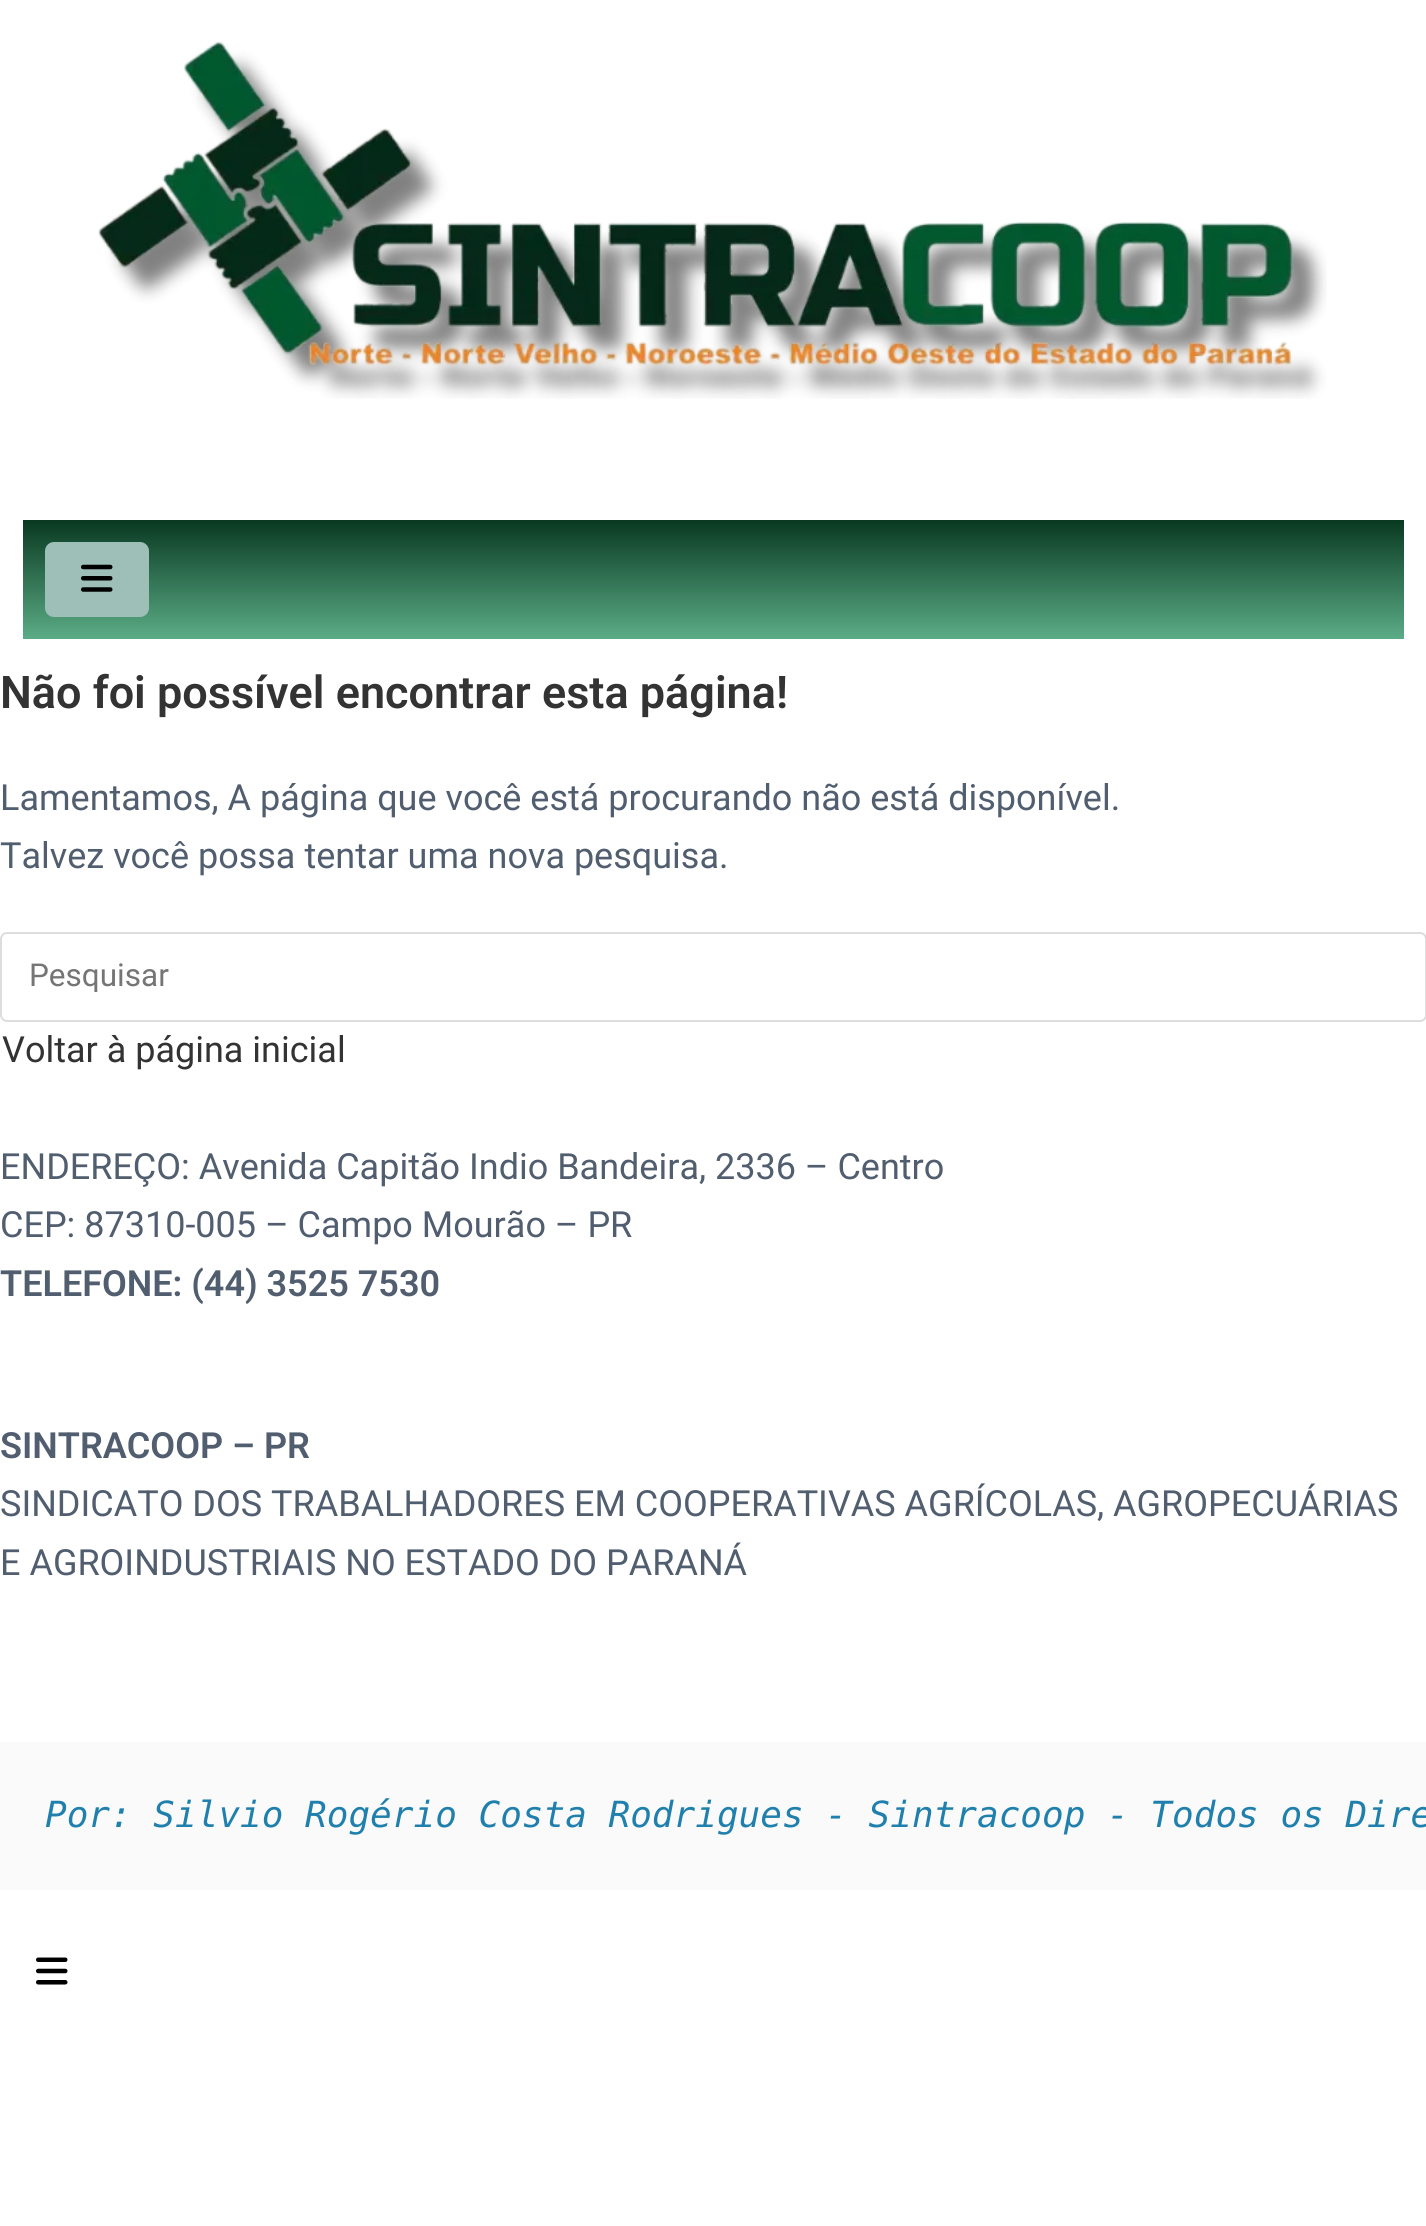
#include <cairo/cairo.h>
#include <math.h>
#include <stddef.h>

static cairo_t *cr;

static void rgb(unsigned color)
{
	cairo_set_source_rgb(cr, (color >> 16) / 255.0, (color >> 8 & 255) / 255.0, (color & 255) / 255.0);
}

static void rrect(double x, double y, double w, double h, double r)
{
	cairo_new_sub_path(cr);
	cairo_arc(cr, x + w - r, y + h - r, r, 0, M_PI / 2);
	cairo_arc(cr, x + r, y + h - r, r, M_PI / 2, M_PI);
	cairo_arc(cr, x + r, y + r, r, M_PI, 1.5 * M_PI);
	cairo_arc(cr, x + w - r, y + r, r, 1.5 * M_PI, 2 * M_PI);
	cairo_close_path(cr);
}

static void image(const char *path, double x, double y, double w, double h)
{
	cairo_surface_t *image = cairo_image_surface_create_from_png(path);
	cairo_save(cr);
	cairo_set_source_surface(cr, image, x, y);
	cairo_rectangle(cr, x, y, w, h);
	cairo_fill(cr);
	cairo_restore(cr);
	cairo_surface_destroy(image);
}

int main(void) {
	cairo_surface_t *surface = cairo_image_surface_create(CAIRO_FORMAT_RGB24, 1426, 2226);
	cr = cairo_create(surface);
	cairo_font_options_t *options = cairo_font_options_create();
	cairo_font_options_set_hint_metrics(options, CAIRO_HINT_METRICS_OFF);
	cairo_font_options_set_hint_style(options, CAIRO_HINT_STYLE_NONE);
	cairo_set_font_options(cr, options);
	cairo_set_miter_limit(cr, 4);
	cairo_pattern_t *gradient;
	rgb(0xffffff);
	cairo_paint(cr);
	image("img/1.png", 98, 41, 1229, 358);
	gradient = cairo_pattern_create_linear(713, 520, 713, 639);
	cairo_pattern_add_color_stop_rgba(gradient, 0, 0.035, 0.224, 0.129, 1);
	cairo_pattern_add_color_stop_rgba(gradient, 1, 0.357, 0.675, 0.529, 1);
	cairo_set_source(cr, gradient);
	cairo_pattern_destroy(gradient);
	cairo_rectangle(cr, 23, 520, 1381, 119);
	cairo_fill(cr);
	rgb(0x9dbfb8);
	rrect(45, 542, 104, 75, 9);
	cairo_fill(cr);
	image("img/2.png", 81, 564, 32, 28);
	rrect(1, 933, 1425, 88, 6);
	rgb(0xdddddd);
	cairo_stroke(cr);
	rgb(0xfafafa);
	cairo_rectangle(cr, 0, 1742, 1426, 148);
	cairo_fill(cr);
	image("img/3.png", 36, 1957, 32, 28);
	cairo_select_font_face(cr, "Roboto SemiBold", CAIRO_FONT_SLANT_NORMAL, CAIRO_FONT_WEIGHT_NORMAL);
	cairo_set_font_size(cr, 45);
	rgb(0x333333);
	cairo_move_to(cr, 0, 708);
	cairo_show_text(cr, "Não foi possível encontrar esta página!");
	cairo_select_font_face(cr, "Roboto", CAIRO_FONT_SLANT_NORMAL, CAIRO_FONT_WEIGHT_NORMAL);
	cairo_set_font_size(cr, 36);
	rgb(0x515e6f);
	cairo_move_to(cr, 0, 810);
	cairo_show_text(cr, "Lamentamos, A página que você está procurando não está disponível.");
	cairo_move_to(cr, 0, 868);
	cairo_show_text(cr, "Talvez você possa tentar uma nova pesquisa.");
	cairo_save(cr);
	cairo_rectangle(cr, 29, 956, 1368, 36);
	cairo_clip(cr);
	cairo_set_font_size(cr, 31.5);
	rgb(0x757575);
	cairo_move_to(cr, 29, 986);
	cairo_show_text(cr, "Pesquisar");
	cairo_restore(cr);
	rgb(0x333333);
	cairo_move_to(cr, 2, 1062);
	cairo_show_text(cr, "Voltar à página inicial");
	rgb(0x515e6f);
	cairo_move_to(cr, 0, 1179);
	cairo_show_text(cr, "ENDEREÇO: Avenida Capitão Indio Bandeira, 2336 – Centro");
	cairo_move_to(cr, 0, 1237);
	cairo_show_text(cr, "CEP: 87310-005 – Campo Mourão – PR");
	cairo_select_font_face(cr, "Roboto SemiBold", CAIRO_FONT_SLANT_NORMAL, CAIRO_FONT_WEIGHT_NORMAL);
	cairo_move_to(cr, 0, 1296);
	cairo_show_text(cr, "TELEFONE: (44) 3525 7530");
	cairo_move_to(cr, 0, 1458);
	cairo_show_text(cr, "SINTRACOOP – PR");
	cairo_select_font_face(cr, "Roboto", CAIRO_FONT_SLANT_NORMAL, CAIRO_FONT_WEIGHT_NORMAL);
	cairo_move_to(cr, 0, 1516);
	cairo_show_text(cr, "SINDICATO DOS TRABALHADORES EM COOPERATIVAS AGRÍCOLAS, AGROPECUÁRIAS");
	cairo_move_to(cr, 0, 1575);
	cairo_show_text(cr, "E AGROINDUSTRIAIS NO ESTADO DO PARANÁ");
	cairo_select_font_face(cr, "DejaVu Sans Mono", CAIRO_FONT_SLANT_ITALIC, CAIRO_FONT_WEIGHT_NORMAL);
	rgb(0x2080ad);
	cairo_move_to(cr, 45, 1827);
	cairo_show_text(cr, "Por: Silvio Rogério Costa Rodrigues - Sintracoop - Todos os Dire");
	cairo_surface_write_to_png(surface, "page.png");
	cairo_font_options_destroy(options);
	cairo_destroy(cr);
	cairo_surface_destroy(surface);
	return 0;
}
